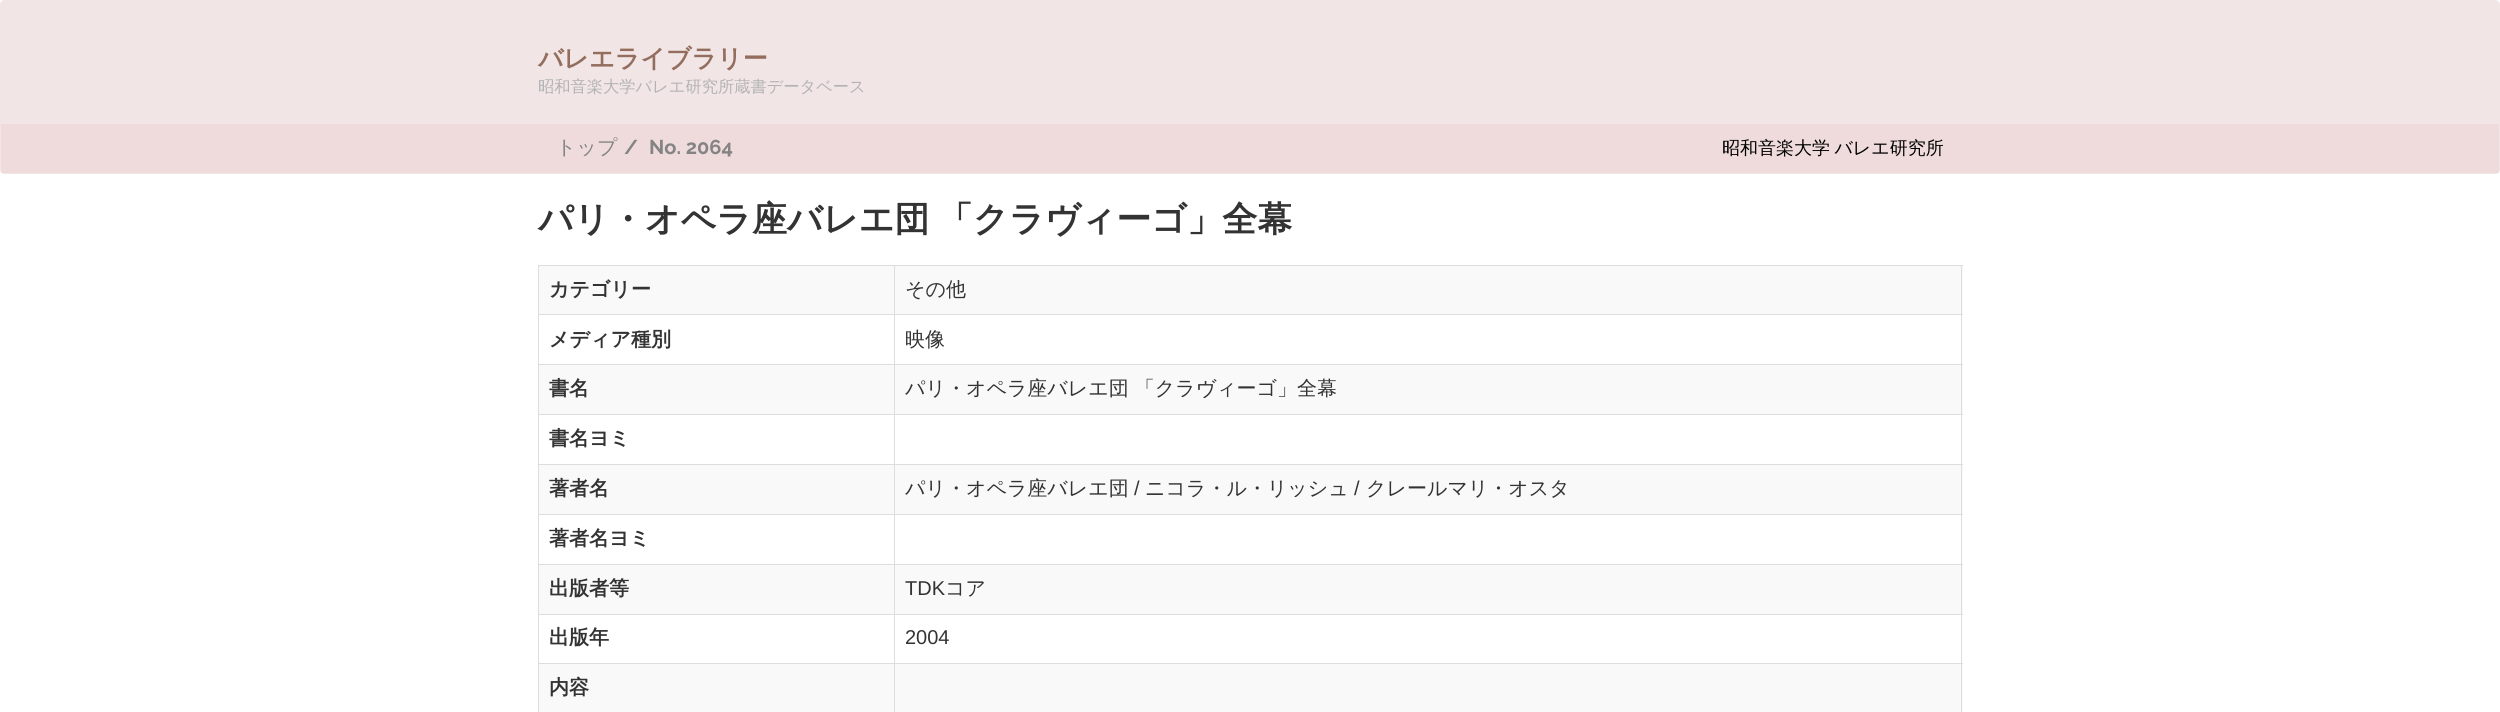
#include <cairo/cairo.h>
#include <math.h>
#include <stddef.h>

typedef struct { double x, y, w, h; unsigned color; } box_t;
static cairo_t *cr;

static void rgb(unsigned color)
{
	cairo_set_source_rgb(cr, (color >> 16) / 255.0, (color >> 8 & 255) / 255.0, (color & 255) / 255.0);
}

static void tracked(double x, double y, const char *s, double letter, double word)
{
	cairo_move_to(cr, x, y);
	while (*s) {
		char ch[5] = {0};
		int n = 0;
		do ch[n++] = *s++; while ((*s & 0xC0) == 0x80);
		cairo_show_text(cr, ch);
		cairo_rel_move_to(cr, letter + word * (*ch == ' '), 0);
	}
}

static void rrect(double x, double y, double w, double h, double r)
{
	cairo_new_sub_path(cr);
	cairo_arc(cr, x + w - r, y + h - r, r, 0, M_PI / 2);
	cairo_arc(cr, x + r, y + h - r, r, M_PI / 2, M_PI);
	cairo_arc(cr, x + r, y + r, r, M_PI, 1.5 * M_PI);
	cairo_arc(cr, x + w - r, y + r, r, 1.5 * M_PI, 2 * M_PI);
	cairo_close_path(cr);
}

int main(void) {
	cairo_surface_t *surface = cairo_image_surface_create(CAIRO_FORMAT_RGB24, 2500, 712);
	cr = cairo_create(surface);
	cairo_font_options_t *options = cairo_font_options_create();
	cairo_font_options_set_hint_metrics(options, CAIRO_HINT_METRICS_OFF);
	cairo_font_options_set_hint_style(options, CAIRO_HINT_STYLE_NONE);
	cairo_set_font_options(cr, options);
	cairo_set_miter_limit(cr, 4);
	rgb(0xffffff);
	cairo_paint(cr);
	rgb(0xf1e5e5);
	rrect(0.5, 0.5, 2499, 173, 4.5);
	cairo_fill_preserve(cr);
	cairo_set_line_width(cr, 1);
	cairo_stroke(cr);
	{
		static const box_t items[] = {
			{1, 124, 2498, 49, 0xefdbdb},
			{538, 265, 1425, 1, 0xdddddd},
			{539, 266, 1424, 48, 0xf9f9f9},
			{539, 365, 1424, 49, 0xf9f9f9},
			{539, 465, 1424, 49, 0xf9f9f9},
			{539, 565, 1424, 49, 0xf9f9f9},
			{539, 664, 1424, 48, 0xf9f9f9},
			{1961, 265, 1, 447, 0xdddddd},
			{538, 265, 1, 447, 0xdddddd},
			{894, 314, 1069, 1, 0xdddddd},
			{894, 364, 1069, 1, 0xdddddd},
			{894, 414, 1069, 1, 0xdddddd},
			{894, 464, 1069, 1, 0xdddddd},
			{894, 514, 1069, 1, 0xdddddd},
			{894, 564, 1069, 1, 0xdddddd},
			{894, 614, 1069, 1, 0xdddddd},
			{894, 663, 1069, 1, 0xdddddd},
			{894, 663, 1, 49, 0xdddddd},
			{538, 663, 357, 1, 0xdddddd},
			{894, 614, 1, 50, 0xdddddd},
			{538, 614, 357, 1, 0xdddddd},
			{894, 564, 1, 51, 0xdddddd},
			{538, 564, 357, 1, 0xdddddd},
			{894, 514, 1, 51, 0xdddddd},
			{538, 514, 357, 1, 0xdddddd},
			{894, 464, 1, 51, 0xdddddd},
			{538, 464, 357, 1, 0xdddddd},
			{894, 414, 1, 51, 0xdddddd},
			{538, 414, 357, 1, 0xdddddd},
			{894, 364, 1, 51, 0xdddddd},
			{538, 364, 357, 1, 0xdddddd},
			{894, 314, 1, 51, 0xdddddd},
			{538, 314, 357, 1, 0xdddddd},
			{894, 265, 1, 50, 0xdddddd},
		};
		for (size_t i = 0; i < sizeof items / sizeof *items; i++) {
			rgb(items[i].color);
			cairo_rectangle(cr, items[i].x, items[i].y, items[i].w, items[i].h);
			cairo_fill(cr);
		}
	}
	cairo_select_font_face(cr, "WenQuanYi Zen Hei", CAIRO_FONT_SLANT_NORMAL, CAIRO_FONT_WEIGHT_BOLD);
	cairo_set_font_size(cr, 25);
	rgb(0x936e5e);
	cairo_move_to(cr, 538, 67);
	cairo_show_text(cr, "バレエライブラリー");
	cairo_select_font_face(cr, "WenQuanYi Zen Hei Medium", CAIRO_FONT_SLANT_NORMAL, CAIRO_FONT_WEIGHT_NORMAL);
	cairo_set_font_size(cr, 16.25);
	rgb(0xb3b3b3);
	cairo_move_to(cr, 538, 92);
	cairo_show_text(cr, "昭和音楽大学バレエ研究所蔵書データベース");
	cairo_set_font_size(cr, 20);
	rgb(0x848484);
	cairo_move_to(cr, 556, 154);
	cairo_show_text(cr, "トップ");
	cairo_select_font_face(cr, "Raleway", CAIRO_FONT_SLANT_NORMAL, CAIRO_FONT_WEIGHT_BOLD);
	cairo_move_to(cr, 624, 154);
	cairo_show_text(cr, "/");
	cairo_move_to(cr, 649, 154);
	cairo_show_text(cr, "No. 2064");
	cairo_select_font_face(cr, "WenQuanYi Zen Hei Medium", CAIRO_FONT_SLANT_NORMAL, CAIRO_FONT_WEIGHT_NORMAL);
	cairo_set_font_size(cr, 18);
	rgb(0x000000);
	tracked(1722, 154, "昭和音楽大学 バレエ研究所", 0, -1);
	cairo_select_font_face(cr, "WenQuanYi Zen Hei", CAIRO_FONT_SLANT_NORMAL, CAIRO_FONT_WEIGHT_BOLD);
	cairo_set_font_size(cr, 35);
	rgb(0x333333);
	tracked(538, 231, "パリ・オペラ座バレエ団 「クラヴィーゴ」全幕", 0, -2);
	cairo_set_font_size(cr, 20);
	cairo_move_to(cr, 549, 296);
	cairo_show_text(cr, "カテゴリー");
	cairo_select_font_face(cr, "WenQuanYi Zen Hei Medium", CAIRO_FONT_SLANT_NORMAL, CAIRO_FONT_WEIGHT_NORMAL);
	cairo_move_to(cr, 905, 296);
	cairo_show_text(cr, "その他");
	cairo_select_font_face(cr, "WenQuanYi Zen Hei", CAIRO_FONT_SLANT_NORMAL, CAIRO_FONT_WEIGHT_BOLD);
	cairo_move_to(cr, 549, 346);
	cairo_show_text(cr, "メディア種別");
	cairo_select_font_face(cr, "WenQuanYi Zen Hei Medium", CAIRO_FONT_SLANT_NORMAL, CAIRO_FONT_WEIGHT_NORMAL);
	cairo_move_to(cr, 905, 346);
	cairo_show_text(cr, "映像");
	cairo_select_font_face(cr, "WenQuanYi Zen Hei", CAIRO_FONT_SLANT_NORMAL, CAIRO_FONT_WEIGHT_BOLD);
	cairo_move_to(cr, 549, 395);
	cairo_show_text(cr, "書名");
	cairo_select_font_face(cr, "WenQuanYi Zen Hei Medium", CAIRO_FONT_SLANT_NORMAL, CAIRO_FONT_WEIGHT_NORMAL);
	cairo_move_to(cr, 905, 395);
	cairo_show_text(cr, "パリ・オペラ座バレエ団 「クラヴィーゴ」全幕");
	cairo_select_font_face(cr, "WenQuanYi Zen Hei", CAIRO_FONT_SLANT_NORMAL, CAIRO_FONT_WEIGHT_BOLD);
	cairo_move_to(cr, 549, 445);
	cairo_show_text(cr, "書名ヨミ");
	cairo_move_to(cr, 549, 495);
	cairo_show_text(cr, "著者名");
	cairo_select_font_face(cr, "WenQuanYi Zen Hei Medium", CAIRO_FONT_SLANT_NORMAL, CAIRO_FONT_WEIGHT_NORMAL);
	cairo_move_to(cr, 905, 495);
	cairo_show_text(cr, "パリ・オペラ座バレエ団");
	cairo_select_font_face(cr, "Liberation Sans", CAIRO_FONT_SLANT_NORMAL, CAIRO_FONT_WEIGHT_NORMAL);
	cairo_move_to(cr, 1134, 495);
	cairo_show_text(cr, "/");
	cairo_select_font_face(cr, "WenQuanYi Zen Hei Medium", CAIRO_FONT_SLANT_NORMAL, CAIRO_FONT_WEIGHT_NORMAL);
	cairo_move_to(cr, 1145, 495);
	cairo_show_text(cr, "ニコラ・ル・リッシュ");
	cairo_select_font_face(cr, "Liberation Sans", CAIRO_FONT_SLANT_NORMAL, CAIRO_FONT_WEIGHT_NORMAL);
	cairo_move_to(cr, 1354, 495);
	cairo_show_text(cr, "/");
	cairo_select_font_face(cr, "WenQuanYi Zen Hei Medium", CAIRO_FONT_SLANT_NORMAL, CAIRO_FONT_WEIGHT_NORMAL);
	cairo_move_to(cr, 1366, 495);
	cairo_show_text(cr, "クレールマリ・オスタ");
	cairo_select_font_face(cr, "WenQuanYi Zen Hei", CAIRO_FONT_SLANT_NORMAL, CAIRO_FONT_WEIGHT_BOLD);
	cairo_move_to(cr, 549, 545);
	cairo_show_text(cr, "著者名ヨミ");
	cairo_move_to(cr, 549, 595);
	cairo_show_text(cr, "出版者等");
	cairo_select_font_face(cr, "Liberation Sans", CAIRO_FONT_SLANT_NORMAL, CAIRO_FONT_WEIGHT_NORMAL);
	cairo_move_to(cr, 905, 595);
	cairo_show_text(cr, "TDK");
	cairo_select_font_face(cr, "WenQuanYi Zen Hei Medium", CAIRO_FONT_SLANT_NORMAL, CAIRO_FONT_WEIGHT_NORMAL);
	cairo_move_to(cr, 945, 595);
	cairo_show_text(cr, "コア");
	cairo_select_font_face(cr, "WenQuanYi Zen Hei", CAIRO_FONT_SLANT_NORMAL, CAIRO_FONT_WEIGHT_BOLD);
	cairo_move_to(cr, 549, 644);
	cairo_show_text(cr, "出版年");
	cairo_select_font_face(cr, "Liberation Sans", CAIRO_FONT_SLANT_NORMAL, CAIRO_FONT_WEIGHT_NORMAL);
	cairo_move_to(cr, 905, 644);
	cairo_show_text(cr, "2004");
	cairo_select_font_face(cr, "WenQuanYi Zen Hei", CAIRO_FONT_SLANT_NORMAL, CAIRO_FONT_WEIGHT_BOLD);
	cairo_move_to(cr, 549, 694);
	cairo_show_text(cr, "内容");
	cairo_surface_write_to_png(surface, "page.png");
	cairo_font_options_destroy(options);
	cairo_destroy(cr);
	cairo_surface_destroy(surface);
	return 0;
}
